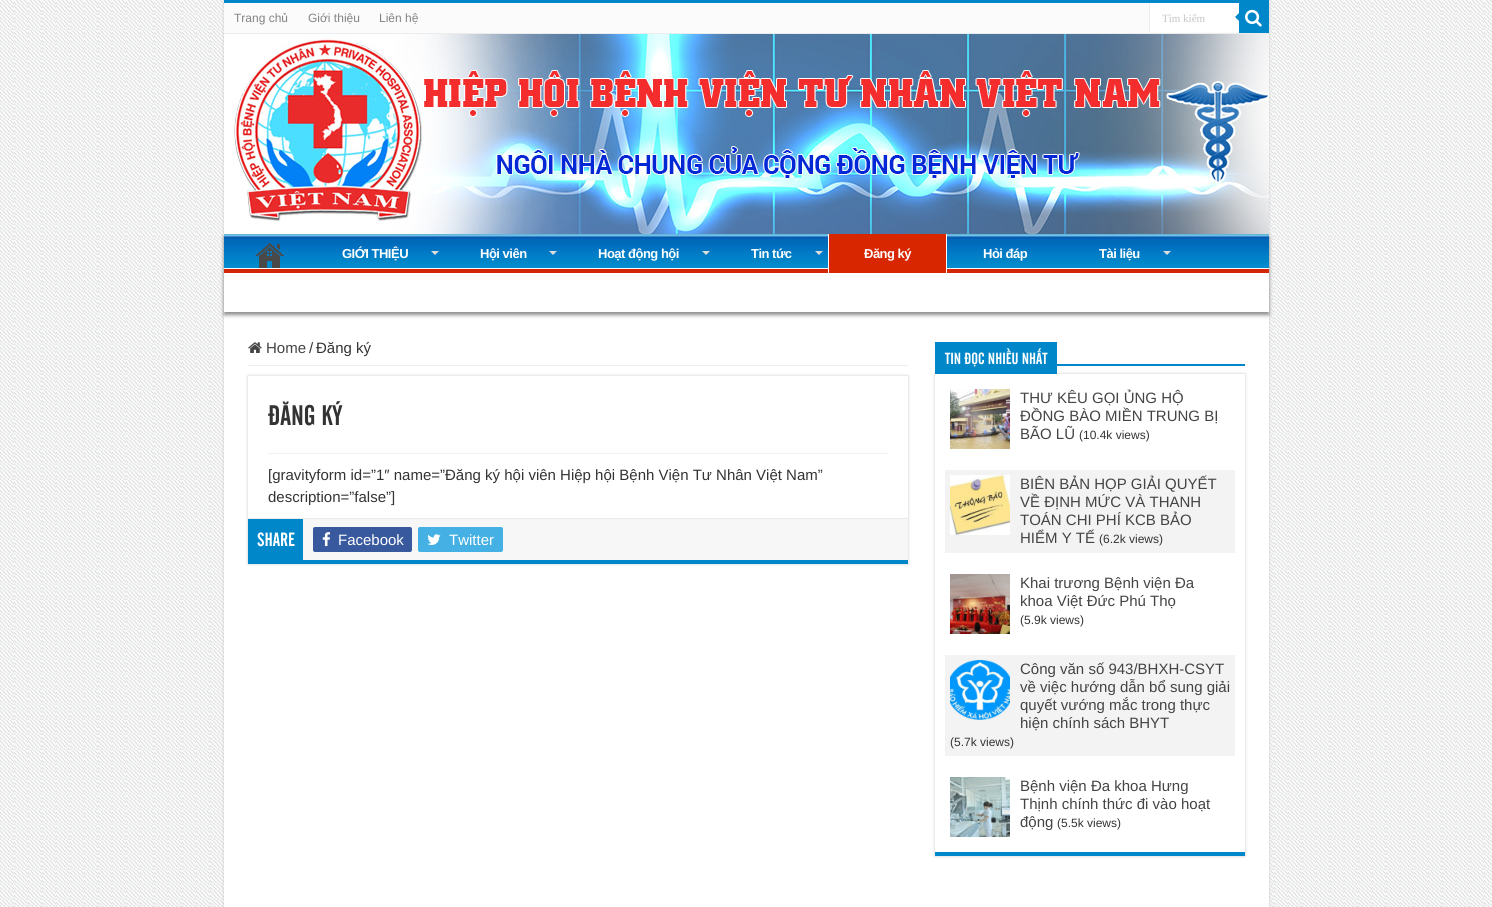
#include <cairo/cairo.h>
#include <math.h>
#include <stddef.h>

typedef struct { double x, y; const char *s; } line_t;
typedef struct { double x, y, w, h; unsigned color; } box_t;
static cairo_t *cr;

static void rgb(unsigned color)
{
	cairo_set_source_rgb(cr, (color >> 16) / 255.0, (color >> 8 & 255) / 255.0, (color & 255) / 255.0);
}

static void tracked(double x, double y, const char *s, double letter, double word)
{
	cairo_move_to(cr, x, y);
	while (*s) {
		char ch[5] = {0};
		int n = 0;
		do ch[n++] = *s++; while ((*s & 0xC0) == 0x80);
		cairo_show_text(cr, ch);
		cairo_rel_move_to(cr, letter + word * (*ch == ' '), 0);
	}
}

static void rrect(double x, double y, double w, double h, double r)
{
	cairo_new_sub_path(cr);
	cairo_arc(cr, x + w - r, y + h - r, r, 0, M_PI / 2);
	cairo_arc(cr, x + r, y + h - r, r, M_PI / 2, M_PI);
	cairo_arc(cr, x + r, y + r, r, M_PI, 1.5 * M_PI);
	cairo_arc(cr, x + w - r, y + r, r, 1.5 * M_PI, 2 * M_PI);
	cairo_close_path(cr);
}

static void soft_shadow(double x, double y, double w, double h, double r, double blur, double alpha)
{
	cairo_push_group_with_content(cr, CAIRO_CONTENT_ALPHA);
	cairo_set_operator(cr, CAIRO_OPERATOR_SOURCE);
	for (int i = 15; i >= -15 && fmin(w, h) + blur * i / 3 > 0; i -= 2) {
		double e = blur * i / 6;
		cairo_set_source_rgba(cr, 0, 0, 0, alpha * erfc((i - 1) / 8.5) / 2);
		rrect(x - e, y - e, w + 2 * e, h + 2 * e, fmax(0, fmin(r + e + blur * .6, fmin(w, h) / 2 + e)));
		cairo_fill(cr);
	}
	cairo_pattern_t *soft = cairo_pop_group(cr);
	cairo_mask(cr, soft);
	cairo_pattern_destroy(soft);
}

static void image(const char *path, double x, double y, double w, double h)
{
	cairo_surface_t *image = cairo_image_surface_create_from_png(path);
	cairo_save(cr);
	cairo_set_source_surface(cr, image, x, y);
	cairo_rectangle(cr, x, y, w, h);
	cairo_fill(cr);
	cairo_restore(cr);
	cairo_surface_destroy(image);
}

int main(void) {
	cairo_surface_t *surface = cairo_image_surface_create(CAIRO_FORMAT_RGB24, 1492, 907);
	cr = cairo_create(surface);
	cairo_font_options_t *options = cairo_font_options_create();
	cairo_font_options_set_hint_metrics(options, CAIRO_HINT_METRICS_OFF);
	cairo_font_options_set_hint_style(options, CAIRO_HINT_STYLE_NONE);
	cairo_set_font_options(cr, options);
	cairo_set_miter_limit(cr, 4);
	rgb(0xffffff);
	cairo_paint(cr);
	image("img/1.png", 0, 0, 1492, 907);
	rgb(0xcacaca);
	soft_shadow(224, 0, 1045, 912, 0, 1.5, 1);
	{
		static const box_t items[] = {
			{224, 34, 1045, 873, 0xffffff},
			{224, 0, 1045, 3, 0x0087c9},
			{224, 3, 1015, 30, 0xfbfbfb},
			{224, 33, 1045, 1, 0xececec},
			{1150, 3, 89, 29, 0xffffff},
			{1149, 3, 1, 29, 0xececec},
			{1239, 3, 30, 30, 0x0087c9},
		};
		for (size_t i = 0; i < sizeof items / sizeof *items; i++) {
			rgb(items[i].color);
			cairo_rectangle(cr, items[i].x, items[i].y, items[i].w, items[i].h);
			cairo_fill(cr);
		}
	}
	image("img/2.png", 1245, 9, 17, 18);
	cairo_new_path(cr);
	cairo_move_to(cr, 1239, 13);
	cairo_line_to(cr, 1239, 21);
	cairo_line_to(cr, 1235, 17);
	cairo_close_path(cr);
	cairo_fill(cr);
	cairo_save(cr);
	cairo_set_fill_rule(cr, CAIRO_FILL_RULE_EVEN_ODD);
	cairo_new_path(cr);
	cairo_move_to(cr, 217, 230);
	cairo_line_to(cr, 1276, 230);
	cairo_line_to(cr, 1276, 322);
	cairo_line_to(cr, 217, 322);
	cairo_close_path(cr);
	cairo_move_to(cr, 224, 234);
	cairo_line_to(cr, 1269, 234);
	cairo_line_to(cr, 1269, 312);
	cairo_line_to(cr, 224, 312);
	cairo_close_path(cr);
	cairo_clip(cr);
	rgb(0x8b8b8b);
	soft_shadow(224, 237, 1045, 78, 0, 2, 1);
	cairo_restore(cr);
	image("img/3.png", 226, 34, 1043, 200);
	image("img/4.png", 224, 234, 1045, 39);
	image("img/5.png", 255, 243, 30, 25);
	rgb(0xdddddd);
	cairo_new_path(cr);
	cairo_move_to(cr, 431, 251);
	cairo_line_to(cr, 439, 251);
	cairo_line_to(cr, 435, 255);
	cairo_close_path(cr);
	cairo_fill(cr);
	cairo_new_path(cr);
	cairo_move_to(cr, 549, 251);
	cairo_line_to(cr, 557, 251);
	cairo_line_to(cr, 553, 255);
	cairo_close_path(cr);
	cairo_fill(cr);
	cairo_new_path(cr);
	cairo_move_to(cr, 702, 251);
	cairo_line_to(cr, 710, 251);
	cairo_line_to(cr, 706, 255);
	cairo_close_path(cr);
	cairo_fill(cr);
	cairo_new_path(cr);
	cairo_move_to(cr, 815, 251);
	cairo_line_to(cr, 823, 251);
	cairo_line_to(cr, 819, 255);
	cairo_close_path(cr);
	cairo_fill(cr);
	{
		static const box_t items[] = {
			{829, 234, 117, 39, 0xd72600},
			{946, 234, 1, 39, 0xffffff},
			{828, 234, 1, 39, 0xffffff},
		};
		for (size_t i = 0; i < sizeof items / sizeof *items; i++) {
			rgb(items[i].color);
			cairo_rectangle(cr, items[i].x, items[i].y, items[i].w, items[i].h);
			cairo_fill(cr);
		}
	}
	rgb(0xdddddd);
	cairo_new_path(cr);
	cairo_move_to(cr, 1163, 251);
	cairo_line_to(cr, 1171, 251);
	cairo_line_to(cr, 1167, 255);
	cairo_close_path(cr);
	cairo_fill(cr);
	rgb(0xeeeeee);
	cairo_rectangle(cr, 248, 365, 660, 1);
	cairo_fill(cr);
	image("img/6.png", 248, 342, 14, 11);
	cairo_save(cr);
	cairo_set_fill_rule(cr, CAIRO_FILL_RULE_EVEN_ODD);
	cairo_new_path(cr);
	cairo_move_to(cr, 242, 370);
	cairo_line_to(cr, 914, 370);
	cairo_line_to(cr, 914, 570);
	cairo_line_to(cr, 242, 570);
	cairo_close_path(cr);
	cairo_move_to(cr, 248, 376);
	cairo_line_to(cr, 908, 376);
	cairo_line_to(cr, 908, 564);
	cairo_line_to(cr, 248, 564);
	cairo_close_path(cr);
	cairo_clip(cr);
	rgb(0xcacaca);
	soft_shadow(248, 376, 660, 188, 0, 1.5, 1);
	cairo_restore(cr);
	{
		static const box_t items[] = {
			{248, 560, 660, 4, 0x0087c9},
			{268, 453, 620, 1, 0xf2f2f2},
			{303, 519, 605, 41, 0xf7f7f7},
			{248, 518, 660, 1, 0xeaeaea},
			{248, 519, 55, 41, 0x0087c9},
		};
		for (size_t i = 0; i < sizeof items / sizeof *items; i++) {
			rgb(items[i].color);
			cairo_rectangle(cr, items[i].x, items[i].y, items[i].w, items[i].h);
			cairo_fill(cr);
		}
	}
	rgb(0x39599f);
	rrect(313, 527, 99, 25, 2);
	cairo_fill(cr);
	image("img/7.png", 322, 532, 9, 15);
	rgb(0x45b0e3);
	rrect(418, 527, 85, 25, 2);
	cairo_fill(cr);
	image("img/8.png", 427, 534, 14, 11);
	rgb(0x0087c9);
	cairo_rectangle(cr, 1057, 364, 188, 2);
	cairo_fill(cr);
	cairo_save(cr);
	cairo_set_fill_rule(cr, CAIRO_FILL_RULE_EVEN_ODD);
	cairo_new_path(cr);
	cairo_move_to(cr, 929, 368);
	cairo_line_to(cr, 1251, 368);
	cairo_line_to(cr, 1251, 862);
	cairo_line_to(cr, 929, 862);
	cairo_close_path(cr);
	cairo_move_to(cr, 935, 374);
	cairo_line_to(cr, 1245, 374);
	cairo_line_to(cr, 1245, 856);
	cairo_line_to(cr, 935, 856);
	cairo_close_path(cr);
	cairo_clip(cr);
	rgb(0xcacaca);
	soft_shadow(935, 374, 310, 482, 0, 1.5, 1);
	cairo_restore(cr);
	cairo_rectangle(cr, 935, 342, 122, 32);
	cairo_fill(cr);
	cairo_rectangle(cr, 935, 852, 310, 4);
	cairo_fill(cr);
	image("img/9.png", 950, 389, 60, 60);
	rgb(0xf3f3f3);
	cairo_rectangle(cr, 945, 470, 290, 83);
	cairo_fill(cr);
	image("img/10.png", 950, 475, 60, 60);
	image("img/11.png", 950, 574, 60, 60);
	cairo_rectangle(cr, 945, 655, 290, 101);
	cairo_fill(cr);
	image("img/12.png", 950, 660, 60, 60);
	image("img/13.png", 950, 777, 60, 60);
	cairo_select_font_face(cr, "Liberation Sans", CAIRO_FONT_SLANT_NORMAL, CAIRO_FONT_WEIGHT_NORMAL);
	cairo_set_font_size(cr, 12);
	rgb(0x838383);
	{
		static const line_t items[] = {
			{234, 22, "Trang chủ"},
			{308, 22, "Giới thiệu"},
			{379, 22, "Liên hệ"},
		};
		for (size_t i = 0; i < sizeof items / sizeof *items; i++) {
			cairo_move_to(cr, items[i].x, items[i].y);
			cairo_show_text(cr, items[i].s);
		}
	}
	cairo_select_font_face(cr, "Liberation Serif", CAIRO_FONT_SLANT_NORMAL, CAIRO_FONT_WEIGHT_NORMAL);
	cairo_set_font_size(cr, 11);
	rgb(0xc5c5c5);
	cairo_move_to(cr, 1162, 22);
	cairo_show_text(cr, "Tìm kiếm");
	cairo_select_font_face(cr, "Liberation Sans", CAIRO_FONT_SLANT_NORMAL, CAIRO_FONT_WEIGHT_BOLD);
	cairo_set_font_size(cr, 13);
	rgb(0xffffff);
	{
		static const line_t items[] = {
			{342, 258, "GIỚI THIỆU"},
			{480, 258, "Hội viên"},
			{598, 258, "Hoạt động hội"},
			{751, 258, "Tin tức"},
			{864, 258, "Đăng ký"},
			{983, 258, "Hỏi đáp"},
			{1099, 258, "Tài liệu"},
		};
		for (size_t i = 0; i < sizeof items / sizeof *items; i++) {
			tracked(items[i].x, items[i].y, items[i].s, -0.5, 0);
		}
	}
	cairo_select_font_face(cr, "Liberation Sans", CAIRO_FONT_SLANT_NORMAL, CAIRO_FONT_WEIGHT_NORMAL);
	cairo_set_font_size(cr, 15);
	rgb(0x444444);
	cairo_move_to(cr, 266, 353);
	cairo_show_text(cr, "Home");
	rgb(0x333333);
	cairo_move_to(cr, 309, 353);
	cairo_show_text(cr, "/");
	cairo_move_to(cr, 316, 353);
	cairo_show_text(cr, "Đăng ký");
	cairo_select_font_face(cr, "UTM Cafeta", CAIRO_FONT_SLANT_NORMAL, CAIRO_FONT_WEIGHT_NORMAL);
	cairo_set_font_size(cr, 28);
	cairo_move_to(cr, 268, 425);
	cairo_show_text(cr, "ĐĂNG KÝ");
	cairo_select_font_face(cr, "Liberation Sans", CAIRO_FONT_SLANT_NORMAL, CAIRO_FONT_WEIGHT_NORMAL);
	cairo_set_font_size(cr, 15);
	cairo_move_to(cr, 268, 480);
	cairo_show_text(cr, "[gravityform id=”1″ name=”Đăng ký hội viên Hiệp hội Bệnh Viện Tư Nhân Việt Nam”");
	cairo_move_to(cr, 268, 502);
	cairo_show_text(cr, "description=”false”]");
	cairo_select_font_face(cr, "UTM Cafeta", CAIRO_FONT_SLANT_NORMAL, CAIRO_FONT_WEIGHT_NORMAL);
	cairo_set_font_size(cr, 19);
	rgb(0xffffff);
	cairo_move_to(cr, 257, 546);
	cairo_show_text(cr, "SHARE");
	cairo_select_font_face(cr, "Liberation Sans", CAIRO_FONT_SLANT_NORMAL, CAIRO_FONT_WEIGHT_NORMAL);
	cairo_set_font_size(cr, 15);
	cairo_move_to(cr, 338, 545);
	cairo_show_text(cr, "Facebook");
	cairo_move_to(cr, 449, 545);
	cairo_show_text(cr, "Twitter");
	cairo_select_font_face(cr, "UTM Cafeta", CAIRO_FONT_SLANT_NORMAL, CAIRO_FONT_WEIGHT_NORMAL);
	cairo_set_font_size(cr, 16);
	cairo_move_to(cr, 945, 364);
	cairo_show_text(cr, "TIN ĐỌC NHIỀU NHẤT");
	cairo_select_font_face(cr, "Liberation Sans", CAIRO_FONT_SLANT_NORMAL, CAIRO_FONT_WEIGHT_NORMAL);
	cairo_set_font_size(cr, 15);
	rgb(0x444444);
	{
		static const line_t items[] = {
			{1020, 403, "THƯ KÊU GỌI ỦNG HỘ"},
			{1020, 421, "ĐỒNG BÀO MIỀN TRUNG BỊ"},
			{1020, 439, "BÃO LŨ"},
		};
		for (size_t i = 0; i < sizeof items / sizeof *items; i++) {
			cairo_move_to(cr, items[i].x, items[i].y);
			cairo_show_text(cr, items[i].s);
		}
	}
	cairo_set_font_size(cr, 12);
	rgb(0x333333);
	cairo_move_to(cr, 1079, 439);
	cairo_show_text(cr, "(10.4k views)");
	cairo_set_font_size(cr, 15);
	rgb(0x444444);
	{
		static const line_t items[] = {
			{1020, 489, "BIÊN BẢN HỌP GIẢI QUYẾT"},
			{1020, 507, "VỀ ĐỊNH MỨC VÀ THANH"},
			{1020, 525, "TOÁN CHI PHÍ KCB BẢO"},
			{1020, 543, "HIỂM Y TẾ"},
		};
		for (size_t i = 0; i < sizeof items / sizeof *items; i++) {
			cairo_move_to(cr, items[i].x, items[i].y);
			cairo_show_text(cr, items[i].s);
		}
	}
	cairo_set_font_size(cr, 12);
	rgb(0x333333);
	cairo_move_to(cr, 1099, 543);
	cairo_show_text(cr, "(6.2k views)");
	cairo_set_font_size(cr, 15);
	rgb(0x444444);
	cairo_move_to(cr, 1020, 588);
	cairo_show_text(cr, "Khai trương Bệnh viện Đa");
	cairo_move_to(cr, 1020, 606);
	cairo_show_text(cr, "khoa Việt Đức Phú Thọ");
	cairo_set_font_size(cr, 12);
	rgb(0x333333);
	cairo_move_to(cr, 1020, 624);
	cairo_show_text(cr, "(5.9k views)");
	cairo_set_font_size(cr, 15);
	rgb(0x444444);
	{
		static const line_t items[] = {
			{1020, 674, "Công văn số 943/BHXH-CSYT"},
			{1020, 692, "về việc hướng dẫn bổ sung giải"},
			{1020, 710, "quyết vướng mắc trong thực"},
			{1020, 728, "hiện chính sách BHYT"},
		};
		for (size_t i = 0; i < sizeof items / sizeof *items; i++) {
			cairo_move_to(cr, items[i].x, items[i].y);
			cairo_show_text(cr, items[i].s);
		}
	}
	cairo_set_font_size(cr, 12);
	rgb(0x333333);
	cairo_move_to(cr, 950, 746);
	cairo_show_text(cr, "(5.7k views)");
	cairo_set_font_size(cr, 15);
	rgb(0x444444);
	{
		static const line_t items[] = {
			{1020, 791, "Bệnh viện Đa khoa Hưng"},
			{1020, 809, "Thịnh chính thức đi vào hoạt"},
			{1020, 827, "động"},
		};
		for (size_t i = 0; i < sizeof items / sizeof *items; i++) {
			cairo_move_to(cr, items[i].x, items[i].y);
			cairo_show_text(cr, items[i].s);
		}
	}
	cairo_set_font_size(cr, 12);
	rgb(0x333333);
	cairo_move_to(cr, 1057, 827);
	cairo_show_text(cr, "(5.5k views)");
	cairo_surface_write_to_png(surface, "page.png");
	cairo_font_options_destroy(options);
	cairo_destroy(cr);
	cairo_surface_destroy(surface);
	return 0;
}
